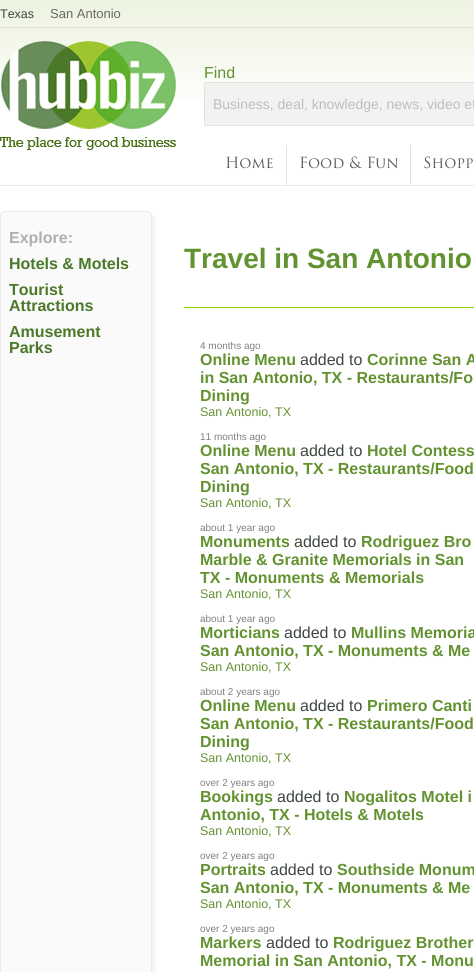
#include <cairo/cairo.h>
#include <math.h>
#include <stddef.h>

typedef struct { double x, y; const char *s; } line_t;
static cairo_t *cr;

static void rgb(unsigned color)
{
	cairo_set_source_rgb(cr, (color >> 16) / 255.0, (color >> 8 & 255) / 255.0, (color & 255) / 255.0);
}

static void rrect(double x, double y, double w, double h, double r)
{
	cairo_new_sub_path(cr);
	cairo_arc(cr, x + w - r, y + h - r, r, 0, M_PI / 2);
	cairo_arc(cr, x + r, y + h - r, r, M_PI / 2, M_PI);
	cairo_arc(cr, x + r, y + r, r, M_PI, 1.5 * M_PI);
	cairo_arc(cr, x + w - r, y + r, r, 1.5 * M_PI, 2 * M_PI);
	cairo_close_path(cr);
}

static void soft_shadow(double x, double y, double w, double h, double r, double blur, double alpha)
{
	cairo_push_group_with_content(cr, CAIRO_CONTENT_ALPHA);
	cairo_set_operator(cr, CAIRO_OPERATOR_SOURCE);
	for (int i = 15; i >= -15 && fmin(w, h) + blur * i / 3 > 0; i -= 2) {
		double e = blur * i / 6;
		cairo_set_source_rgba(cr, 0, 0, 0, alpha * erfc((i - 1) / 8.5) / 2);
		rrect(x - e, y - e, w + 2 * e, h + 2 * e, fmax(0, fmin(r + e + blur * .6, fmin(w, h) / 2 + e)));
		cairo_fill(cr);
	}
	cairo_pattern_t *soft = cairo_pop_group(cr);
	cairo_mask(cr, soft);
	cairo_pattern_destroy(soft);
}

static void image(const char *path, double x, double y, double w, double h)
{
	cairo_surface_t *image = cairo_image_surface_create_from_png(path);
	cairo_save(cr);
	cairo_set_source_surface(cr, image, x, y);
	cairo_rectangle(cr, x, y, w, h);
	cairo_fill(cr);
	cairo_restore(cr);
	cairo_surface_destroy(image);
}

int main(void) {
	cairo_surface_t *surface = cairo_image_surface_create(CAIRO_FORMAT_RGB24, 474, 972);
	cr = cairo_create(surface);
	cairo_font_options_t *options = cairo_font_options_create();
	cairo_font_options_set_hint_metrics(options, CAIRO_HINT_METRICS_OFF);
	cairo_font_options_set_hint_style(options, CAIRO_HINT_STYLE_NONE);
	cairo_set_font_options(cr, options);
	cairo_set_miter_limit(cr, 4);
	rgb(0xffffff);
	cairo_paint(cr);
	image("img/1.png", 0, 0, 474, 99);
	rgb(0xe9eae9);
	cairo_rectangle(cr, 0, 185, 474, 1);
	cairo_fill(cr);
	rgb(0xe0e1e0);
	cairo_rectangle(cr, 0, 27, 474, 1);
	cairo_fill(cr);
	image("img/2.png", 0, 41, 176, 109);
	rgb(0xf4f2f0);
	cairo_rectangle(cr, 204.5, 82.5, 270, 43);
	cairo_fill_preserve(cr);
	rgb(0xe2e2e2);
	cairo_set_line_width(cr, 1);
	cairo_stroke(cr);
	rgb(0xe0e1e0);
	cairo_rectangle(cr, 286, 145, 1, 40);
	cairo_fill(cr);
	cairo_rectangle(cr, 410, 145, 1, 40);
	cairo_fill(cr);
	rgb(0x000000);
	soft_shadow(3, 214, 152, 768, 5, 1.5, 0.05);
	rgb(0xfafafa);
	rrect(0.5, 211.5, 151, 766, 4.5);
	cairo_fill_preserve(cr);
	rgb(0xe9e9e9);
	cairo_stroke(cr);
	rgb(0x8bd700);
	cairo_rectangle(cr, 184, 307, 290, 1);
	cairo_fill(cr);
	cairo_select_font_face(cr, "Liberation Sans", CAIRO_FONT_SLANT_NORMAL, CAIRO_FONT_WEIGHT_NORMAL);
	cairo_set_font_size(cr, 12.5);
	rgb(0x3f473f);
	cairo_move_to(cr, 0, 18);
	cairo_show_text(cr, "Texas");
	cairo_set_font_size(cr, 13);
	rgb(0x676767);
	cairo_move_to(cr, 50, 18);
	cairo_show_text(cr, "San Antonio");
	cairo_set_font_size(cr, 16);
	rgb(0x639230);
	cairo_move_to(cr, 204, 78);
	cairo_show_text(cr, "Find");
	cairo_set_font_size(cr, 14);
	rgb(0xbebebe);
	cairo_move_to(cr, 213, 109);
	cairo_show_text(cr, "Business, deal, knowledge, news, video et");
	cairo_select_font_face(cr, "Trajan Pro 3", CAIRO_FONT_SLANT_NORMAL, CAIRO_FONT_WEIGHT_NORMAL);
	cairo_set_font_size(cr, 15);
	rgb(0x5d5e5e);
	{
		static const line_t items[] = {
			{225, 168, "Home"},
			{299, 168, "Food & Fun"},
			{423, 168, "Shopp"},
		};
		for (size_t i = 0; i < sizeof items / sizeof *items; i++) {
			cairo_move_to(cr, items[i].x, items[i].y);
			cairo_show_text(cr, items[i].s);
		}
	}
	cairo_select_font_face(cr, "Liberation Sans", CAIRO_FONT_SLANT_NORMAL, CAIRO_FONT_WEIGHT_BOLD);
	cairo_set_font_size(cr, 16);
	rgb(0xafafaf);
	cairo_move_to(cr, 9, 243);
	cairo_show_text(cr, "Explore:");
	rgb(0x4b7929);
	{
		static const line_t items[] = {
			{9, 269, "Hotels & Motels"},
			{9, 295, "Tourist"},
			{9, 311, "Attractions"},
			{9, 337, "Amusement"},
			{9, 353, "Parks"},
		};
		for (size_t i = 0; i < sizeof items / sizeof *items; i++) {
			cairo_move_to(cr, items[i].x, items[i].y);
			cairo_show_text(cr, items[i].s);
		}
	}
	cairo_set_font_size(cr, 28);
	rgb(0x639230);
	cairo_move_to(cr, 184, 268);
	cairo_show_text(cr, "Travel in San Antonio");
	cairo_select_font_face(cr, "Liberation Sans", CAIRO_FONT_SLANT_NORMAL, CAIRO_FONT_WEIGHT_NORMAL);
	cairo_set_font_size(cr, 10);
	rgb(0x808080);
	cairo_move_to(cr, 200, 349);
	cairo_show_text(cr, "4 months ago");
	cairo_select_font_face(cr, "Liberation Sans", CAIRO_FONT_SLANT_NORMAL, CAIRO_FONT_WEIGHT_BOLD);
	cairo_set_font_size(cr, 16);
	rgb(0x639230);
	cairo_move_to(cr, 200, 365);
	cairo_show_text(cr, "Online Menu");
	cairo_select_font_face(cr, "Liberation Sans", CAIRO_FONT_SLANT_NORMAL, CAIRO_FONT_WEIGHT_NORMAL);
	rgb(0x3f473f);
	cairo_move_to(cr, 300, 365);
	cairo_show_text(cr, "added to");
	cairo_select_font_face(cr, "Liberation Sans", CAIRO_FONT_SLANT_NORMAL, CAIRO_FONT_WEIGHT_BOLD);
	rgb(0x639230);
	{
		static const line_t items[] = {
			{367, 365, "Corinne San A"},
			{200, 383, "in San Antonio, TX - Restaurants/Fo"},
			{200, 401, "Dining"},
		};
		for (size_t i = 0; i < sizeof items / sizeof *items; i++) {
			cairo_move_to(cr, items[i].x, items[i].y);
			cairo_show_text(cr, items[i].s);
		}
	}
	cairo_select_font_face(cr, "Liberation Sans", CAIRO_FONT_SLANT_NORMAL, CAIRO_FONT_WEIGHT_NORMAL);
	cairo_set_font_size(cr, 12.5);
	cairo_move_to(cr, 200, 416);
	cairo_show_text(cr, "San Antonio, TX");
	cairo_set_font_size(cr, 10);
	rgb(0x808080);
	cairo_move_to(cr, 200, 440);
	cairo_show_text(cr, "11 months ago");
	cairo_select_font_face(cr, "Liberation Sans", CAIRO_FONT_SLANT_NORMAL, CAIRO_FONT_WEIGHT_BOLD);
	cairo_set_font_size(cr, 16);
	rgb(0x639230);
	cairo_move_to(cr, 200, 456);
	cairo_show_text(cr, "Online Menu");
	cairo_select_font_face(cr, "Liberation Sans", CAIRO_FONT_SLANT_NORMAL, CAIRO_FONT_WEIGHT_NORMAL);
	rgb(0x3f473f);
	cairo_move_to(cr, 300, 456);
	cairo_show_text(cr, "added to");
	cairo_select_font_face(cr, "Liberation Sans", CAIRO_FONT_SLANT_NORMAL, CAIRO_FONT_WEIGHT_BOLD);
	rgb(0x639230);
	{
		static const line_t items[] = {
			{367, 456, "Hotel Contess"},
			{200, 474, "San Antonio, TX - Restaurants/Food"},
			{200, 492, "Dining"},
		};
		for (size_t i = 0; i < sizeof items / sizeof *items; i++) {
			cairo_move_to(cr, items[i].x, items[i].y);
			cairo_show_text(cr, items[i].s);
		}
	}
	cairo_select_font_face(cr, "Liberation Sans", CAIRO_FONT_SLANT_NORMAL, CAIRO_FONT_WEIGHT_NORMAL);
	cairo_set_font_size(cr, 12.5);
	cairo_move_to(cr, 200, 507);
	cairo_show_text(cr, "San Antonio, TX");
	cairo_set_font_size(cr, 10);
	rgb(0x808080);
	cairo_move_to(cr, 200, 531);
	cairo_show_text(cr, "about 1 year ago");
	cairo_select_font_face(cr, "Liberation Sans", CAIRO_FONT_SLANT_NORMAL, CAIRO_FONT_WEIGHT_BOLD);
	cairo_set_font_size(cr, 16);
	rgb(0x639230);
	cairo_move_to(cr, 200, 547);
	cairo_show_text(cr, "Monuments");
	cairo_select_font_face(cr, "Liberation Sans", CAIRO_FONT_SLANT_NORMAL, CAIRO_FONT_WEIGHT_NORMAL);
	rgb(0x3f473f);
	cairo_move_to(cr, 294, 547);
	cairo_show_text(cr, "added to");
	cairo_select_font_face(cr, "Liberation Sans", CAIRO_FONT_SLANT_NORMAL, CAIRO_FONT_WEIGHT_BOLD);
	rgb(0x639230);
	{
		static const line_t items[] = {
			{361, 547, "Rodriguez Bro"},
			{200, 565, "Marble & Granite Memorials in San"},
			{200, 583, "TX - Monuments & Memorials"},
		};
		for (size_t i = 0; i < sizeof items / sizeof *items; i++) {
			cairo_move_to(cr, items[i].x, items[i].y);
			cairo_show_text(cr, items[i].s);
		}
	}
	cairo_select_font_face(cr, "Liberation Sans", CAIRO_FONT_SLANT_NORMAL, CAIRO_FONT_WEIGHT_NORMAL);
	cairo_set_font_size(cr, 12.5);
	cairo_move_to(cr, 200, 598);
	cairo_show_text(cr, "San Antonio, TX");
	cairo_set_font_size(cr, 10);
	rgb(0x808080);
	cairo_move_to(cr, 200, 622);
	cairo_show_text(cr, "about 1 year ago");
	cairo_select_font_face(cr, "Liberation Sans", CAIRO_FONT_SLANT_NORMAL, CAIRO_FONT_WEIGHT_BOLD);
	cairo_set_font_size(cr, 16);
	rgb(0x639230);
	cairo_move_to(cr, 200, 638);
	cairo_show_text(cr, "Morticians");
	cairo_select_font_face(cr, "Liberation Sans", CAIRO_FONT_SLANT_NORMAL, CAIRO_FONT_WEIGHT_NORMAL);
	rgb(0x3f473f);
	cairo_move_to(cr, 284, 638);
	cairo_show_text(cr, "added to");
	cairo_select_font_face(cr, "Liberation Sans", CAIRO_FONT_SLANT_NORMAL, CAIRO_FONT_WEIGHT_BOLD);
	rgb(0x639230);
	cairo_move_to(cr, 351, 638);
	cairo_show_text(cr, "Mullins Memoria");
	cairo_move_to(cr, 200, 656);
	cairo_show_text(cr, "San Antonio, TX - Monuments & Me");
	cairo_select_font_face(cr, "Liberation Sans", CAIRO_FONT_SLANT_NORMAL, CAIRO_FONT_WEIGHT_NORMAL);
	cairo_set_font_size(cr, 12.5);
	cairo_move_to(cr, 200, 671);
	cairo_show_text(cr, "San Antonio, TX");
	cairo_set_font_size(cr, 10);
	rgb(0x808080);
	cairo_move_to(cr, 200, 695);
	cairo_show_text(cr, "about 2 years ago");
	cairo_select_font_face(cr, "Liberation Sans", CAIRO_FONT_SLANT_NORMAL, CAIRO_FONT_WEIGHT_BOLD);
	cairo_set_font_size(cr, 16);
	rgb(0x639230);
	cairo_move_to(cr, 200, 711);
	cairo_show_text(cr, "Online Menu");
	cairo_select_font_face(cr, "Liberation Sans", CAIRO_FONT_SLANT_NORMAL, CAIRO_FONT_WEIGHT_NORMAL);
	rgb(0x3f473f);
	cairo_move_to(cr, 300, 711);
	cairo_show_text(cr, "added to");
	cairo_select_font_face(cr, "Liberation Sans", CAIRO_FONT_SLANT_NORMAL, CAIRO_FONT_WEIGHT_BOLD);
	rgb(0x639230);
	{
		static const line_t items[] = {
			{367, 711, "Primero Canti"},
			{200, 729, "San Antonio, TX - Restaurants/Food"},
			{200, 747, "Dining"},
		};
		for (size_t i = 0; i < sizeof items / sizeof *items; i++) {
			cairo_move_to(cr, items[i].x, items[i].y);
			cairo_show_text(cr, items[i].s);
		}
	}
	cairo_select_font_face(cr, "Liberation Sans", CAIRO_FONT_SLANT_NORMAL, CAIRO_FONT_WEIGHT_NORMAL);
	cairo_set_font_size(cr, 12.5);
	cairo_move_to(cr, 200, 762);
	cairo_show_text(cr, "San Antonio, TX");
	cairo_set_font_size(cr, 10);
	rgb(0x808080);
	cairo_move_to(cr, 200, 786);
	cairo_show_text(cr, "over 2 years ago");
	cairo_select_font_face(cr, "Liberation Sans", CAIRO_FONT_SLANT_NORMAL, CAIRO_FONT_WEIGHT_BOLD);
	cairo_set_font_size(cr, 16);
	rgb(0x639230);
	cairo_move_to(cr, 200, 802);
	cairo_show_text(cr, "Bookings");
	cairo_select_font_face(cr, "Liberation Sans", CAIRO_FONT_SLANT_NORMAL, CAIRO_FONT_WEIGHT_NORMAL);
	rgb(0x3f473f);
	cairo_move_to(cr, 277, 802);
	cairo_show_text(cr, "added to");
	cairo_select_font_face(cr, "Liberation Sans", CAIRO_FONT_SLANT_NORMAL, CAIRO_FONT_WEIGHT_BOLD);
	rgb(0x639230);
	cairo_move_to(cr, 344, 802);
	cairo_show_text(cr, "Nogalitos Motel i");
	cairo_move_to(cr, 200, 820);
	cairo_show_text(cr, "Antonio, TX - Hotels & Motels");
	cairo_select_font_face(cr, "Liberation Sans", CAIRO_FONT_SLANT_NORMAL, CAIRO_FONT_WEIGHT_NORMAL);
	cairo_set_font_size(cr, 12.5);
	cairo_move_to(cr, 200, 835);
	cairo_show_text(cr, "San Antonio, TX");
	cairo_set_font_size(cr, 10);
	rgb(0x808080);
	cairo_move_to(cr, 200, 859);
	cairo_show_text(cr, "over 2 years ago");
	cairo_select_font_face(cr, "Liberation Sans", CAIRO_FONT_SLANT_NORMAL, CAIRO_FONT_WEIGHT_BOLD);
	cairo_set_font_size(cr, 16);
	rgb(0x639230);
	cairo_move_to(cr, 200, 875);
	cairo_show_text(cr, "Portraits");
	cairo_select_font_face(cr, "Liberation Sans", CAIRO_FONT_SLANT_NORMAL, CAIRO_FONT_WEIGHT_NORMAL);
	rgb(0x3f473f);
	cairo_move_to(cr, 270, 875);
	cairo_show_text(cr, "added to");
	cairo_select_font_face(cr, "Liberation Sans", CAIRO_FONT_SLANT_NORMAL, CAIRO_FONT_WEIGHT_BOLD);
	rgb(0x639230);
	cairo_move_to(cr, 337, 875);
	cairo_show_text(cr, "Southside Monum");
	cairo_move_to(cr, 200, 893);
	cairo_show_text(cr, "San Antonio, TX - Monuments & Me");
	cairo_select_font_face(cr, "Liberation Sans", CAIRO_FONT_SLANT_NORMAL, CAIRO_FONT_WEIGHT_NORMAL);
	cairo_set_font_size(cr, 12.5);
	cairo_move_to(cr, 200, 908);
	cairo_show_text(cr, "San Antonio, TX");
	cairo_set_font_size(cr, 10);
	rgb(0x808080);
	cairo_move_to(cr, 200, 932);
	cairo_show_text(cr, "over 2 years ago");
	cairo_select_font_face(cr, "Liberation Sans", CAIRO_FONT_SLANT_NORMAL, CAIRO_FONT_WEIGHT_BOLD);
	cairo_set_font_size(cr, 16);
	rgb(0x639230);
	cairo_move_to(cr, 200, 948);
	cairo_show_text(cr, "Markers");
	cairo_select_font_face(cr, "Liberation Sans", CAIRO_FONT_SLANT_NORMAL, CAIRO_FONT_WEIGHT_NORMAL);
	rgb(0x3f473f);
	cairo_move_to(cr, 266, 948);
	cairo_show_text(cr, "added to");
	cairo_select_font_face(cr, "Liberation Sans", CAIRO_FONT_SLANT_NORMAL, CAIRO_FONT_WEIGHT_BOLD);
	rgb(0x639230);
	cairo_move_to(cr, 333, 948);
	cairo_show_text(cr, "Rodriguez Brother");
	cairo_move_to(cr, 200, 966);
	cairo_show_text(cr, "Memorial in San Antonio, TX - Monu");
	cairo_surface_write_to_png(surface, "page.png");
	cairo_font_options_destroy(options);
	cairo_destroy(cr);
	cairo_surface_destroy(surface);
	return 0;
}
